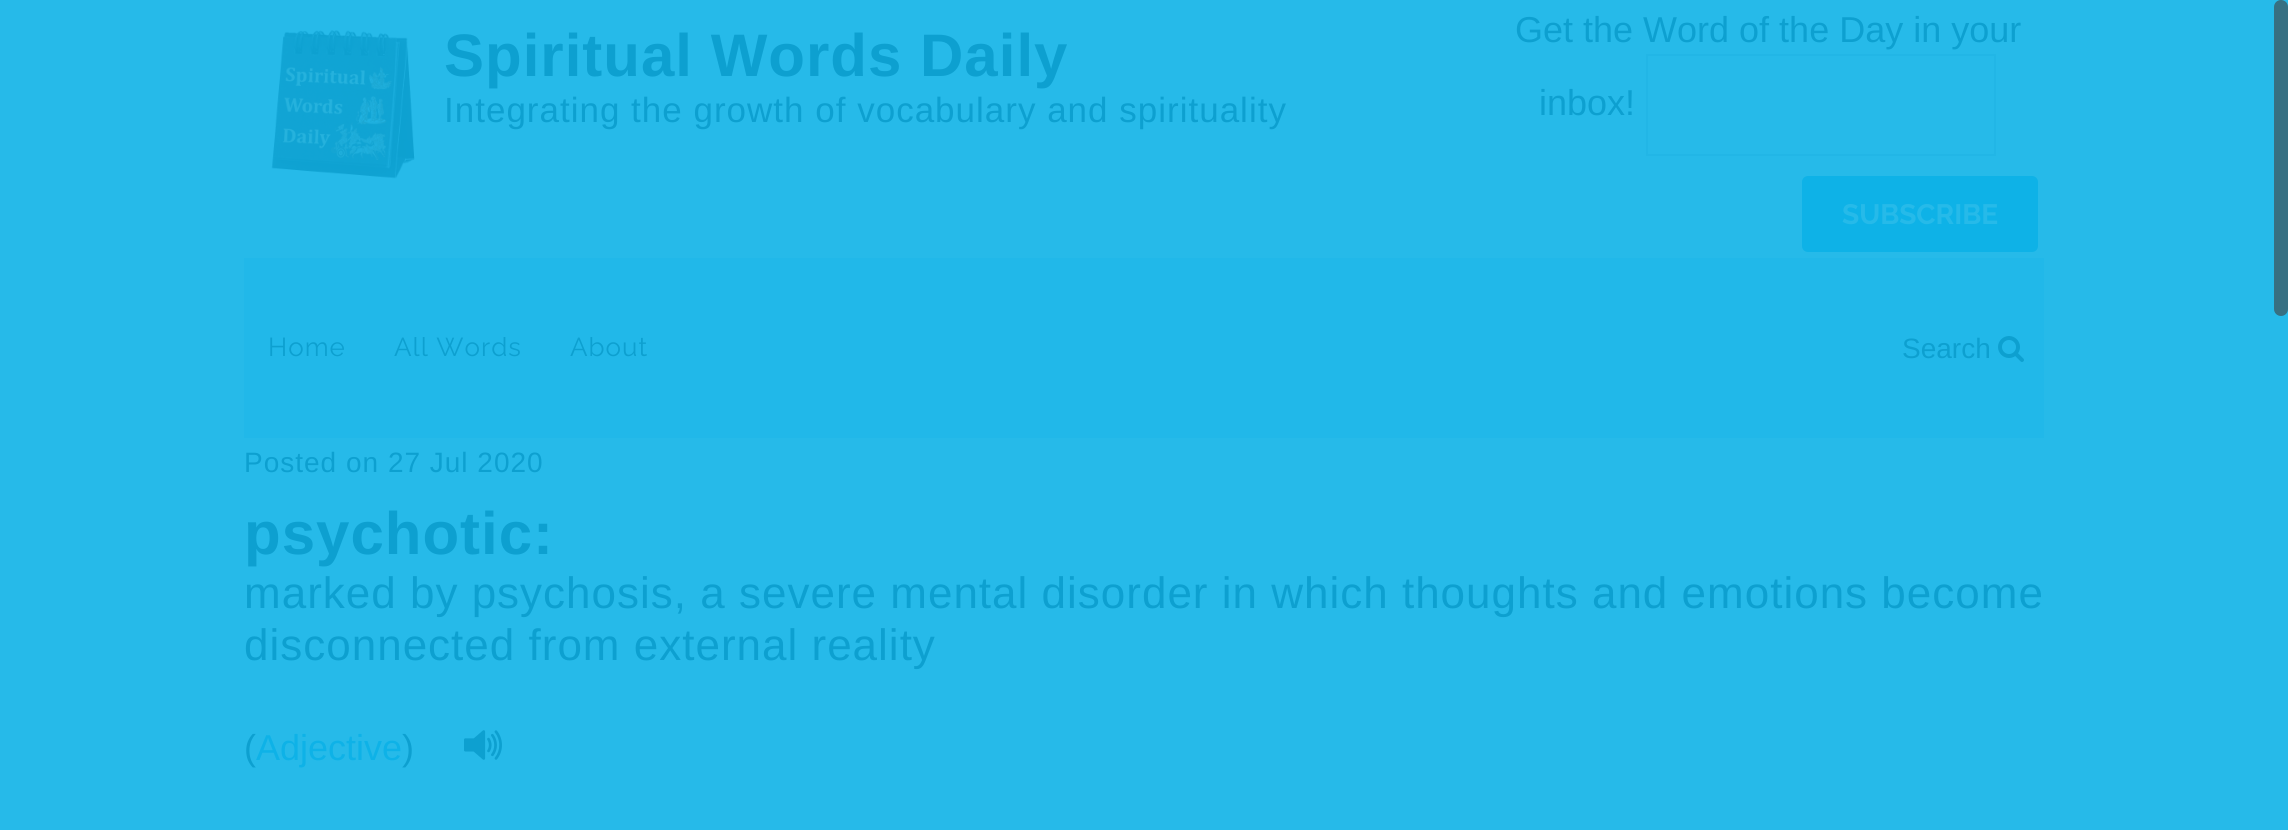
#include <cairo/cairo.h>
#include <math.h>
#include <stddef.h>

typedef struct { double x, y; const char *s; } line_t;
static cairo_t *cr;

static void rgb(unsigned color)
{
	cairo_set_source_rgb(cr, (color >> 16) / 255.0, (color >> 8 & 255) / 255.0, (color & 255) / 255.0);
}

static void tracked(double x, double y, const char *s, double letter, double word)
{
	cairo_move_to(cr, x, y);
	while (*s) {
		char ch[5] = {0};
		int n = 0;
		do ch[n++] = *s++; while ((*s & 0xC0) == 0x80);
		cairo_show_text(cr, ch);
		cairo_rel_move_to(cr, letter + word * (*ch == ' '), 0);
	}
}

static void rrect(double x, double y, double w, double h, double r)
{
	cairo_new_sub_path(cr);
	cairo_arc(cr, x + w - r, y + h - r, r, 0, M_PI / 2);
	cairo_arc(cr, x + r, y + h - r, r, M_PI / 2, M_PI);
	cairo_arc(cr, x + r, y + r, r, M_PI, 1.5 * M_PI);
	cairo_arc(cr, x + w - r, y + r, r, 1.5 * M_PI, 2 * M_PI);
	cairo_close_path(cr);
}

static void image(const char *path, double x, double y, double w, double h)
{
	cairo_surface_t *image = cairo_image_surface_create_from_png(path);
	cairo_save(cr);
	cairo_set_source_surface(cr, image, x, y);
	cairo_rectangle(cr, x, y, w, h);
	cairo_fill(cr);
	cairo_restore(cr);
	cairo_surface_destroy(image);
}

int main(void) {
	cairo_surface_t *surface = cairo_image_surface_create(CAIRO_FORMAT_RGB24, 2288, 830);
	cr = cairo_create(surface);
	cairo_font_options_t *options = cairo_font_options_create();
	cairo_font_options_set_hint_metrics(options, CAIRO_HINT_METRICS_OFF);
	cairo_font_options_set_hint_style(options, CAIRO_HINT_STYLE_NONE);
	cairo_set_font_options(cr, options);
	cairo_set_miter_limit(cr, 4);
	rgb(0x26bae9);
	cairo_paint(cr);
	image("img/1.png", 271, 30, 144, 149);
	cairo_rectangle(cr, 1647, 55, 348, 100);
	rgb(0x22b6e6);
	cairo_stroke(cr);
	rgb(0x0eb2e7);
	rrect(1802, 176, 236, 76, 6);
	cairo_fill(cr);
	rgb(0x21b8e9);
	cairo_rectangle(cr, 244, 258, 1800, 180);
	cairo_fill(cr);
	image("img/2.png", 1998, 336, 26, 26);
	image("img/3.png", 464, 730, 38, 30);
	rgb(0x377082);
	rrect(2275, 1, 12, 314, 6);
	cairo_fill_preserve(cr);
	cairo_stroke(cr);
	cairo_select_font_face(cr, "Liberation Sans", CAIRO_FONT_SLANT_NORMAL, CAIRO_FONT_WEIGHT_BOLD);
	cairo_set_font_size(cr, 60);
	rgb(0x0da0d0);
	tracked(444, 76, "Spiritual Words Daily", 1, 0);
	cairo_select_font_face(cr, "Liberation Sans", CAIRO_FONT_SLANT_NORMAL, CAIRO_FONT_WEIGHT_NORMAL);
	cairo_set_font_size(cr, 35);
	tracked(444, 122, "Integrating the growth of vocabulary and spirituality", 1, 0);
	cairo_set_font_size(cr, 36);
	cairo_move_to(cr, 1515, 42);
	cairo_show_text(cr, "Get the Word of the Day in your");
	cairo_move_to(cr, 1539, 115);
	cairo_show_text(cr, "inbox!");
	cairo_select_font_face(cr, "Raleway", CAIRO_FONT_SLANT_NORMAL, CAIRO_FONT_WEIGHT_BOLD);
	cairo_set_font_size(cr, 28);
	rgb(0x26bae9);
	cairo_move_to(cr, 1842, 224);
	cairo_show_text(cr, "SUBSCRIBE");
	cairo_select_font_face(cr, "Raleway", CAIRO_FONT_SLANT_NORMAL, CAIRO_FONT_WEIGHT_NORMAL);
	cairo_set_font_size(cr, 26);
	rgb(0x0da0d0);
	{
		static const line_t items[] = {
			{268, 356, "Home"},
			{394, 356, "All Words"},
			{570, 356, "About"},
		};
		for (size_t i = 0; i < sizeof items / sizeof *items; i++) {
			tracked(items[i].x, items[i].y, items[i].s, 1, 0);
		}
	}
	cairo_select_font_face(cr, "Liberation Sans", CAIRO_FONT_SLANT_NORMAL, CAIRO_FONT_WEIGHT_NORMAL);
	cairo_set_font_size(cr, 28);
	cairo_move_to(cr, 1902, 358);
	cairo_show_text(cr, "Search");
	tracked(244, 472, "Posted on 27 Jul 2020", 1, 0);
	cairo_select_font_face(cr, "Liberation Sans", CAIRO_FONT_SLANT_NORMAL, CAIRO_FONT_WEIGHT_BOLD);
	cairo_set_font_size(cr, 60);
	tracked(244, 554, "psychotic:", 1, 0);
	cairo_select_font_face(cr, "Liberation Sans", CAIRO_FONT_SLANT_NORMAL, CAIRO_FONT_WEIGHT_NORMAL);
	cairo_set_font_size(cr, 44);
	tracked(244, 608, "marked by psychosis, a severe mental disorder in which thoughts and emotions become", 1, 0);
	tracked(244, 660, "disconnected from external reality", 1, 0);
	cairo_set_font_size(cr, 36);
	cairo_move_to(cr, 244, 760);
	cairo_show_text(cr, "(");
	rgb(0x0eb2e7);
	cairo_move_to(cr, 256, 760);
	cairo_show_text(cr, "Adjective");
	rgb(0x0da0d0);
	cairo_move_to(cr, 402, 760);
	cairo_show_text(cr, ")");
	cairo_surface_write_to_png(surface, "page.png");
	cairo_font_options_destroy(options);
	cairo_destroy(cr);
	cairo_surface_destroy(surface);
	return 0;
}
